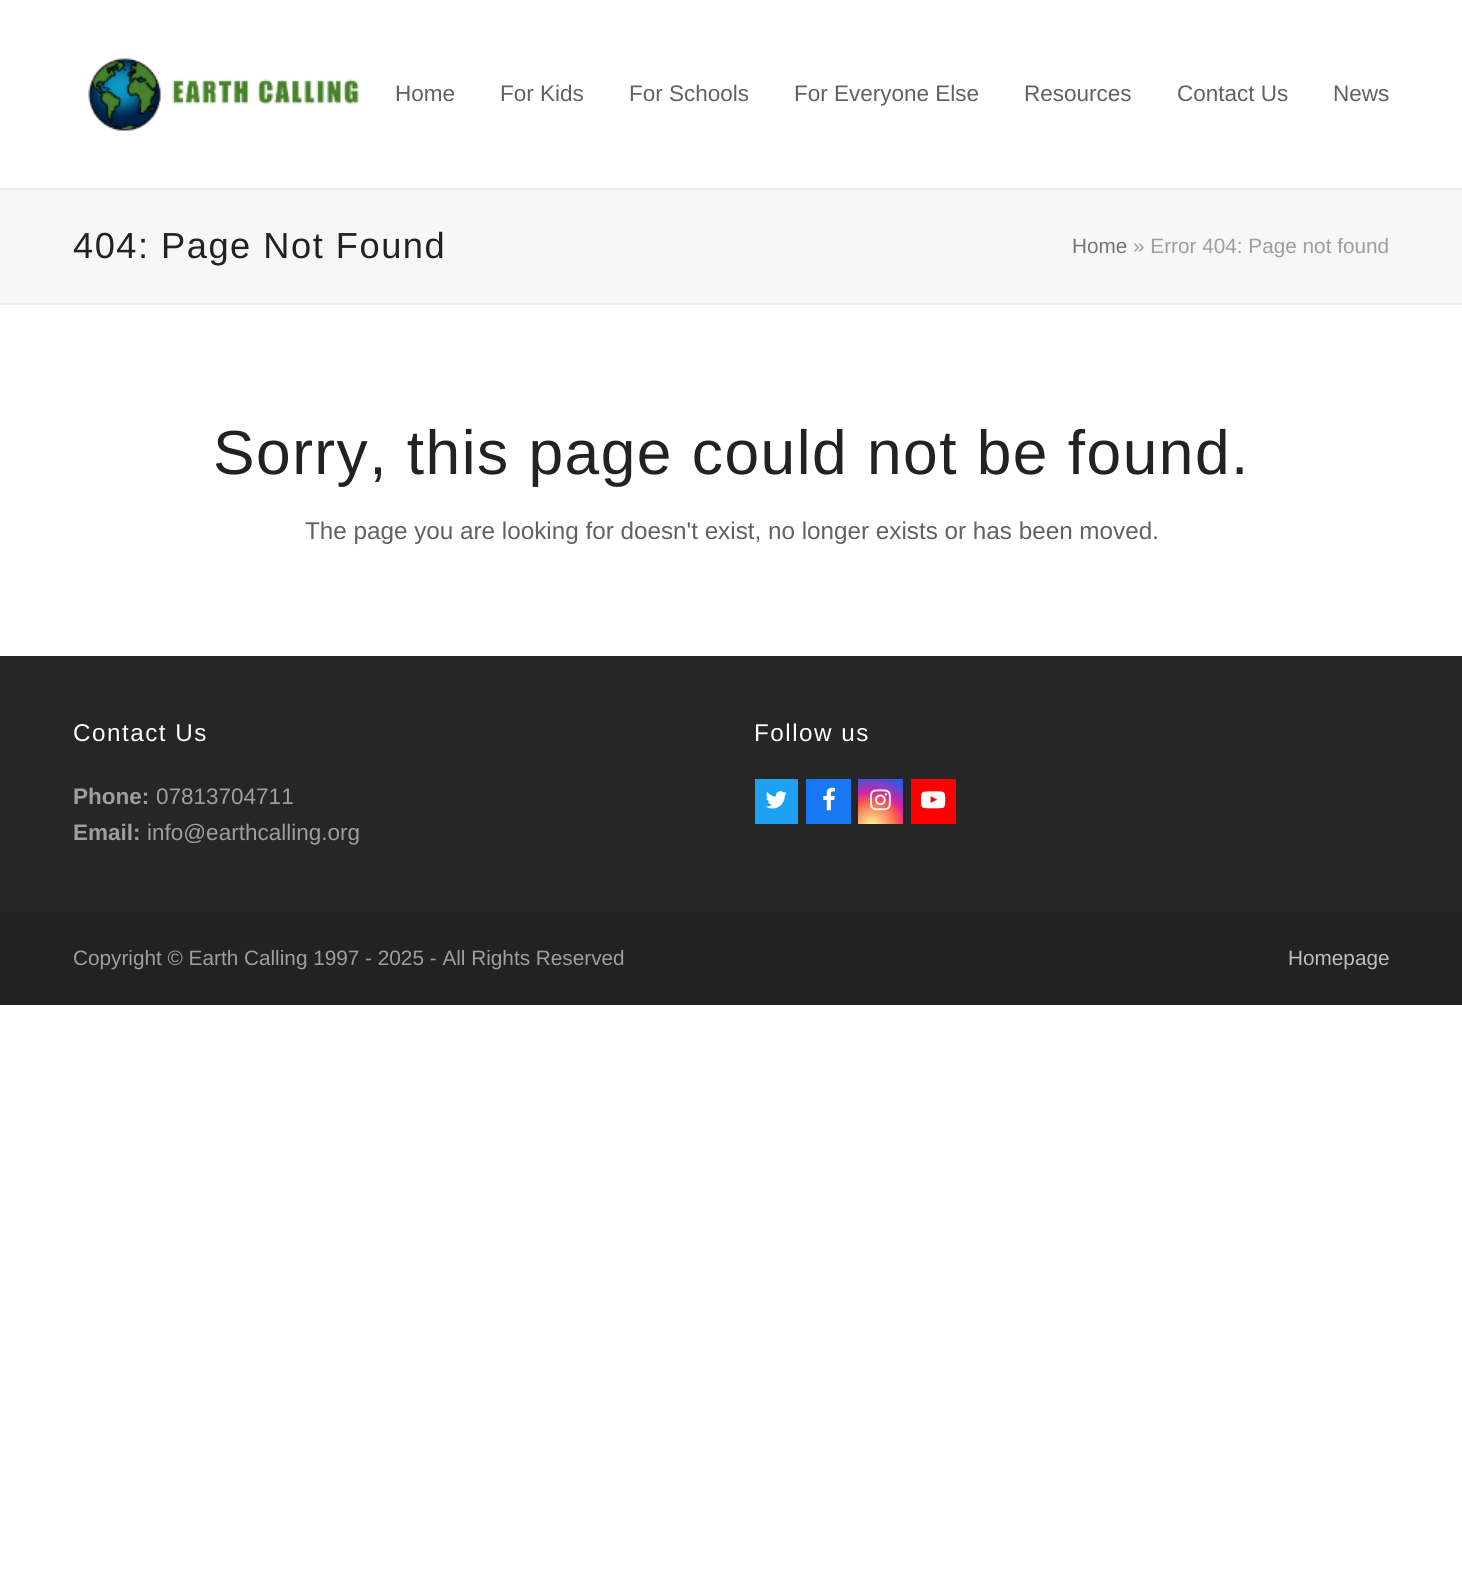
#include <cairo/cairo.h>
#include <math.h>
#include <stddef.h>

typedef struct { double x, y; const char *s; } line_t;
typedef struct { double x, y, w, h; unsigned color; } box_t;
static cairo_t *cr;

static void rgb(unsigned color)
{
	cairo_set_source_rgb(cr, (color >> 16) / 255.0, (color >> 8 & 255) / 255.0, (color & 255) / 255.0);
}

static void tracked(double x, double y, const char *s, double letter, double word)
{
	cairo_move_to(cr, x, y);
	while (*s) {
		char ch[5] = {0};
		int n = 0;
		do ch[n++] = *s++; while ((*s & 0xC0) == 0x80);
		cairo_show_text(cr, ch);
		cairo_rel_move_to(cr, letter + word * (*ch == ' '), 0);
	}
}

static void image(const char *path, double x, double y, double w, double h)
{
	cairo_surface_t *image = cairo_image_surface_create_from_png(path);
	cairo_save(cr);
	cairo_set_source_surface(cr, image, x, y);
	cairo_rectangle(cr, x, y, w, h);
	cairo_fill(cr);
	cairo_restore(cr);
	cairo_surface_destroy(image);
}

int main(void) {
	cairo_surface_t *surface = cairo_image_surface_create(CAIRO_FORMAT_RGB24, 1462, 1591);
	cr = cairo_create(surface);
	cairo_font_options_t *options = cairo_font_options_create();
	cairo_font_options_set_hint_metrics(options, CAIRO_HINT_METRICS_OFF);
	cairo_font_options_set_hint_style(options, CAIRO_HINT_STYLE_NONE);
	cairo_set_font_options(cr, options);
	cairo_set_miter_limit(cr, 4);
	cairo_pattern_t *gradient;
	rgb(0xffffff);
	cairo_paint(cr);
	image("img/1.png", 88, 58, 271, 73);
	{
		static const box_t items[] = {
			{0, 190, 1462, 113, 0xf7f7f7},
			{0, 188, 1462, 2, 0xeeeeee},
			{0, 303, 1462, 2, 0xeeeeee},
			{0, 656, 1462, 256, 0x262626},
			{755, 779, 43, 45, 0x1da1f2},
		};
		for (size_t i = 0; i < sizeof items / sizeof *items; i++) {
			rgb(items[i].color);
			cairo_rectangle(cr, items[i].x, items[i].y, items[i].w, items[i].h);
			cairo_fill(cr);
		}
	}
	image("img/2.png", 765, 791, 22, 18);
	rgb(0x1877f2);
	cairo_rectangle(cr, 806, 779, 45, 45);
	cairo_fill(cr);
	image("img/3.png", 823, 787, 12, 24);
	gradient = cairo_pattern_create_radial(872, 827, 0, 872, 827, 58);
	cairo_pattern_add_color_stop_rgba(gradient, 0, 0.992, 0.957, 0.592, 1);
	cairo_pattern_add_color_stop_rgba(gradient, 0.05, 0.992, 0.957, 0.592, 1);
	cairo_pattern_add_color_stop_rgba(gradient, 0.45, 0.992, 0.349, 0.286, 1);
	cairo_pattern_add_color_stop_rgba(gradient, 0.6, 0.839, 0.141, 0.624, 1);
	cairo_pattern_add_color_stop_rgba(gradient, 0.9, 0.157, 0.353, 0.922, 1);
	cairo_set_source(cr, gradient);
	cairo_pattern_destroy(gradient);
	cairo_rectangle(cr, 858, 779, 45, 45);
	cairo_fill(cr);
	image("img/4.png", 870, 789, 21, 22);
	rgb(0xff0000);
	cairo_rectangle(cr, 911, 779, 45, 45);
	cairo_fill(cr);
	image("img/5.png", 921, 791, 25, 18);
	rgb(0x222222);
	cairo_rectangle(cr, 0, 912, 1462, 93);
	cairo_fill(cr);
	cairo_select_font_face(cr, "Liberation Sans", CAIRO_FONT_SLANT_NORMAL, CAIRO_FONT_WEIGHT_NORMAL);
	cairo_set_font_size(cr, 22.5);
	rgb(0x616161);
	{
		static const line_t items[] = {
			{395, 101, "Home"},
			{500, 101, "For Kids"},
			{629, 101, "For Schools"},
			{794, 101, "For Everyone Else"},
			{1024, 101, "Resources"},
			{1177, 101, "Contact Us"},
			{1333, 101, "News"},
		};
		for (size_t i = 0; i < sizeof items / sizeof *items; i++) {
			cairo_move_to(cr, items[i].x, items[i].y);
			cairo_show_text(cr, items[i].s);
		}
	}
	cairo_set_font_size(cr, 36.25);
	rgb(0x222222);
	tracked(73, 258, "404: Page Not Found", 1.5, 0);
	cairo_set_font_size(cr, 20.75);
	rgb(0x757575);
	cairo_move_to(cr, 1072, 253);
	cairo_show_text(cr, "Home");
	rgb(0x9e9e9e);
	cairo_move_to(cr, 1133, 253);
	cairo_show_text(cr, "» Error 404: Page not found");
	cairo_set_font_size(cr, 62.25);
	rgb(0x222222);
	tracked(213, 474, "Sorry, this page could not be found.", 1.5, 0);
	cairo_set_font_size(cr, 24.25);
	rgb(0x616161);
	cairo_move_to(cr, 305, 539);
	cairo_show_text(cr, "The page you are looking for doesn't exist, no longer exists or has been moved.");
	rgb(0xffffff);
	tracked(73, 741, "Contact Us", 1.5, 0);
	cairo_select_font_face(cr, "Liberation Sans", CAIRO_FONT_SLANT_NORMAL, CAIRO_FONT_WEIGHT_BOLD);
	cairo_set_font_size(cr, 22.5);
	rgb(0x9e9e9e);
	cairo_move_to(cr, 73, 804);
	cairo_show_text(cr, "Phone:");
	cairo_select_font_face(cr, "Liberation Sans", CAIRO_FONT_SLANT_NORMAL, CAIRO_FONT_WEIGHT_NORMAL);
	cairo_move_to(cr, 156, 804);
	cairo_show_text(cr, "07813704711");
	cairo_select_font_face(cr, "Liberation Sans", CAIRO_FONT_SLANT_NORMAL, CAIRO_FONT_WEIGHT_BOLD);
	cairo_move_to(cr, 73, 840);
	cairo_show_text(cr, "Email:");
	cairo_select_font_face(cr, "Liberation Sans", CAIRO_FONT_SLANT_NORMAL, CAIRO_FONT_WEIGHT_NORMAL);
	cairo_move_to(cr, 147, 840);
	cairo_show_text(cr, "info@earthcalling.org");
	cairo_set_font_size(cr, 24.25);
	rgb(0xffffff);
	tracked(754, 741, "Follow us", 1.5, 0);
	cairo_set_font_size(cr, 20.75);
	rgb(0x9e9e9e);
	cairo_move_to(cr, 73, 965);
	cairo_show_text(cr, "Copyright © Earth Calling 1997 - 2025 - All Rights Reserved");
	rgb(0xbdbdbd);
	cairo_move_to(cr, 1288, 965);
	cairo_show_text(cr, "Homepage");
	cairo_surface_write_to_png(surface, "page.png");
	cairo_font_options_destroy(options);
	cairo_destroy(cr);
	cairo_surface_destroy(surface);
	return 0;
}
